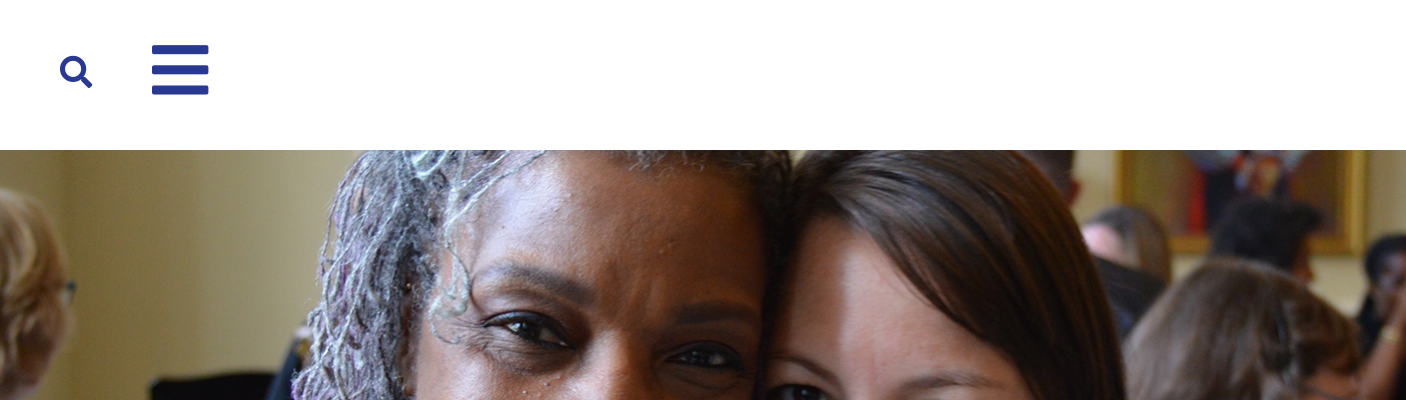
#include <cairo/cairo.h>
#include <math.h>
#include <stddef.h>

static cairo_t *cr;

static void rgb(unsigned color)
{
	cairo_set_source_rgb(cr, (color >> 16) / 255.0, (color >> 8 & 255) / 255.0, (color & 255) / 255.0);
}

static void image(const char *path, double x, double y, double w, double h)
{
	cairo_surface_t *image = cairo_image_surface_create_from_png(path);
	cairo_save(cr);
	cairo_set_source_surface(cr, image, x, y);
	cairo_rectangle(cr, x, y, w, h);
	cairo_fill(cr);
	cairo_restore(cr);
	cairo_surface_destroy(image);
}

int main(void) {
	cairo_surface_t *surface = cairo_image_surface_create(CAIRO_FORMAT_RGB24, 1406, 400);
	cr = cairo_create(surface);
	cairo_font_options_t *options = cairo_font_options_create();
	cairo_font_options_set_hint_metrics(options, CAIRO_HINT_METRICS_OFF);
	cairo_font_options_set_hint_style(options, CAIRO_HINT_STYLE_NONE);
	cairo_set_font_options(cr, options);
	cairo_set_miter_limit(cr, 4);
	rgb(0xffffff);
	cairo_paint(cr);
	image("img/1.png", 60, 55, 33, 33);
	image("img/2.png", 152, 45, 57, 50);
	image("img/3.png", 0, 150, 1406, 250);
	cairo_surface_write_to_png(surface, "page.png");
	cairo_font_options_destroy(options);
	cairo_destroy(cr);
	cairo_surface_destroy(surface);
	return 0;
}
